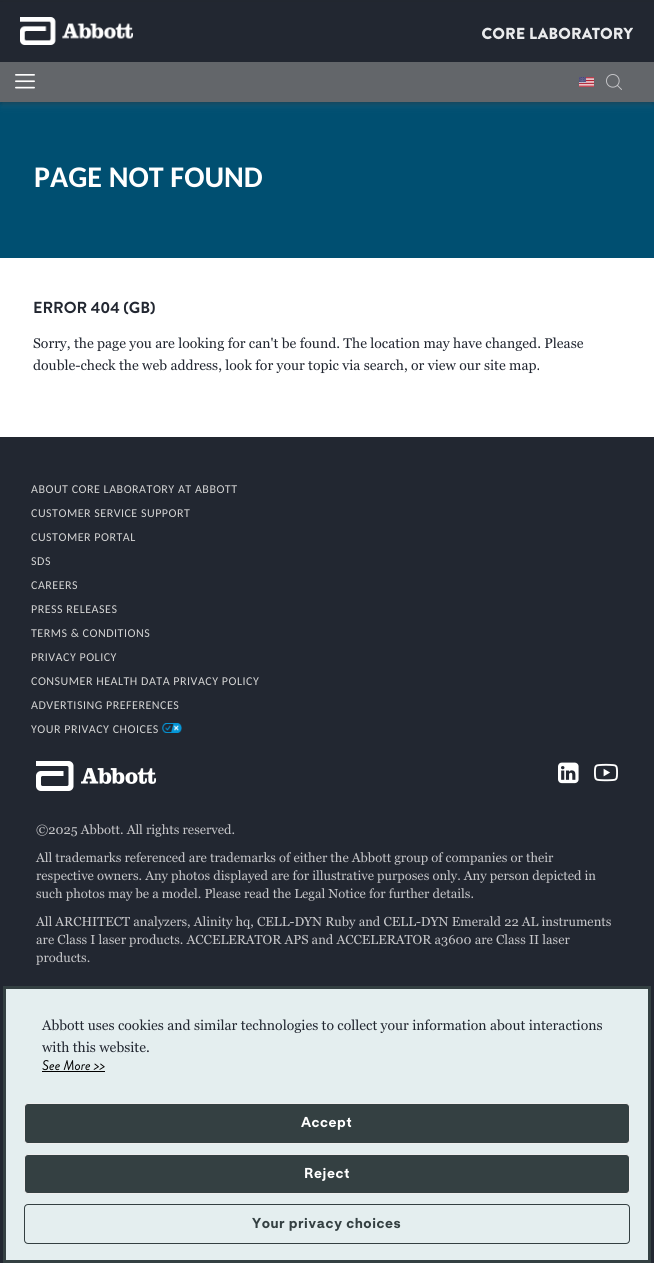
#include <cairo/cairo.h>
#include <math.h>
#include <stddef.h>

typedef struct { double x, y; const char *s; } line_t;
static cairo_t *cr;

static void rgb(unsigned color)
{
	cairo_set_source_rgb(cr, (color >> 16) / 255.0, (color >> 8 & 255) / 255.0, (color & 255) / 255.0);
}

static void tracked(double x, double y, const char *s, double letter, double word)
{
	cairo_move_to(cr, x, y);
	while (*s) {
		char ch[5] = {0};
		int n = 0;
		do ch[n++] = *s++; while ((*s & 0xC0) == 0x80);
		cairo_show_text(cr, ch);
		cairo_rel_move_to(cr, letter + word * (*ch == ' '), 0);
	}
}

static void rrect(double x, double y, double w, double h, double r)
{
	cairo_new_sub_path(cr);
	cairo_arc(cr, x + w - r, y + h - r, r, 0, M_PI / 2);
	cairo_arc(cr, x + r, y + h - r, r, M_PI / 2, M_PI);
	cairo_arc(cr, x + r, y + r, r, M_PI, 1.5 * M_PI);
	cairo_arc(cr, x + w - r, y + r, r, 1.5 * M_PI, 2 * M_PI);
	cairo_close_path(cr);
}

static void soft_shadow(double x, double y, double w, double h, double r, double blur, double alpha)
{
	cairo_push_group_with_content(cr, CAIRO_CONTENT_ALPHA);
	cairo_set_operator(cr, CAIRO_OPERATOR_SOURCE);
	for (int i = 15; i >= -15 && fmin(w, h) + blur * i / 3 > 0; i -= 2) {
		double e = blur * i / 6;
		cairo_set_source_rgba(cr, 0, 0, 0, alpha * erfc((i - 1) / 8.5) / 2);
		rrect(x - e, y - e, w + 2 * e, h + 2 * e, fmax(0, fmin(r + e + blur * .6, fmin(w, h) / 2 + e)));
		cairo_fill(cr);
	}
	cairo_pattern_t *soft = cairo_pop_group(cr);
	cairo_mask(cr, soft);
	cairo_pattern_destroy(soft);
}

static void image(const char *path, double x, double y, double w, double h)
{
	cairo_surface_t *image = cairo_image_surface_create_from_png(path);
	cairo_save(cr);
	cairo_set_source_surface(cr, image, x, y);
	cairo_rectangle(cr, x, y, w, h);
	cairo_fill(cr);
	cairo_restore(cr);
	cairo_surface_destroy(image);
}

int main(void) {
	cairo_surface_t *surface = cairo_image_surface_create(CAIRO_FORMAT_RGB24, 654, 1263);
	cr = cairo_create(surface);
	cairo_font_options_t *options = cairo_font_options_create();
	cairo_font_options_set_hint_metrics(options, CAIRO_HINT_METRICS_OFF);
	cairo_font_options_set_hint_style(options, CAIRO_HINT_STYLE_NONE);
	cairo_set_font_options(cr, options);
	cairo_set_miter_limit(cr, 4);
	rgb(0x222731);
	cairo_paint(cr);
	rgb(0x004f71);
	cairo_rectangle(cr, 0, 102, 654, 156);
	cairo_fill(cr);
	rgb(0x8d8d94);
	soft_shadow(2, 6, 650, 98, 0, 4, 0.28);
	rgb(0x000000);
	soft_shadow(0, 2, 654, 102, 0, 2, 0.24);
	rgb(0x222731);
	cairo_rectangle(cr, 0, 2, 654, 60);
	cairo_fill(cr);
	image("img/1.png", 20, 17, 113, 28);
	image("img/2.png", 482, 27, 151, 13);
	rgb(0x63666a);
	cairo_rectangle(cr, 0, 62, 654, 40);
	cairo_fill(cr);
	image("img/3.png", 15, 74, 20, 15);
	image("img/4.png", 579, 77, 15, 10);
	image("img/5.png", 606, 74, 16, 16);
	rgb(0xffffff);
	cairo_rectangle(cr, 0, 258, 654, 179);
	cairo_fill(cr);
	image("img/6.png", 162, 723, 20, 10);
	image("img/7.png", 36, 761, 120, 30);
	image("img/8.png", 558, 762, 21, 22);
	image("img/9.png", 594, 763, 24, 19);
	rgb(0xe4eeef);
	cairo_rectangle(cr, 4.5, 987.5, 645, 274);
	cairo_fill_preserve(cr);
	rgb(0x344042);
	cairo_set_line_width(cr, 3);
	cairo_stroke(cr);
	rgb(0x000000);
	cairo_rectangle(cr, 42, 1071, 63, 1);
	cairo_fill(cr);
	rgb(0x344042);
	rrect(24.5, 1103.5, 605, 40, 3.5);
	cairo_fill_preserve(cr);
	rgb(0xeeeeee);
	cairo_set_line_width(cr, 1);
	cairo_stroke(cr);
	rgb(0x344042);
	rrect(24.5, 1154.5, 605, 39, 3.5);
	cairo_fill_preserve(cr);
	rgb(0xeeeeee);
	cairo_stroke(cr);
	rrect(24.5, 1204.5, 605, 39, 3.5);
	rgb(0x344042);
	cairo_stroke(cr);
	cairo_select_font_face(cr, "Carlito", CAIRO_FONT_SLANT_NORMAL, CAIRO_FONT_WEIGHT_BOLD);
	cairo_set_font_size(cr, 30);
	rgb(0xffffff);
	cairo_move_to(cr, 34, 187);
	cairo_show_text(cr, "PAGE NOT FOUND");
	cairo_select_font_face(cr, "Brandon Grotesque", CAIRO_FONT_SLANT_NORMAL, CAIRO_FONT_WEIGHT_BOLD);
	cairo_set_font_size(cr, 16);
	rgb(0x222731);
	cairo_move_to(cr, 33, 313);
	cairo_show_text(cr, "ERROR 404 (GB)");
	cairo_select_font_face(cr, "Georgia", CAIRO_FONT_SLANT_NORMAL, CAIRO_FONT_WEIGHT_NORMAL);
	cairo_set_font_size(cr, 14);
	cairo_move_to(cr, 33, 348);
	cairo_show_text(cr, "Sorry, the page you are looking for can't be found. The location may have changed. Please");
	cairo_move_to(cr, 33, 370);
	cairo_show_text(cr, "double-check the web address, look for your topic via search, or view our site map.");
	cairo_select_font_face(cr, "Carlito", CAIRO_FONT_SLANT_NORMAL, CAIRO_FONT_WEIGHT_NORMAL);
	cairo_set_font_size(cr, 12);
	rgb(0xd4d4d4);
	{
		static const line_t items[] = {
			{31, 493, "ABOUT CORE LABORATORY AT ABBOTT"},
			{31, 517, "CUSTOMER SERVICE SUPPORT"},
			{31, 541, "CUSTOMER PORTAL"},
			{31, 565, "SDS"},
			{31, 589, "CAREERS"},
			{31, 613, "PRESS RELEASES"},
			{31, 637, "TERMS & CONDITIONS"},
			{31, 661, "PRIVACY POLICY"},
			{31, 685, "CONSUMER HEALTH DATA PRIVACY POLICY"},
			{31, 709, "ADVERTISING PREFERENCES"},
			{31, 733, "YOUR PRIVACY CHOICES"},
		};
		for (size_t i = 0; i < sizeof items / sizeof *items; i++) {
			tracked(items[i].x, items[i].y, items[i].s, 0.5, 0);
		}
	}
	cairo_select_font_face(cr, "Georgia", CAIRO_FONT_SLANT_NORMAL, CAIRO_FONT_WEIGHT_NORMAL);
	cairo_set_font_size(cr, 13);
	rgb(0xc6c6c9);
	{
		static const line_t items[] = {
			{36, 834, "©2025 Abbott. All rights reserved."},
			{36, 862, "All trademarks referenced are trademarks of either the Abbott group of companies or their"},
			{36, 880, "respective owners. Any photos displayed are for illustrative purposes only. Any person depicted in"},
			{36, 898, "such photos may be a model. Please read the Legal Notice for further details."},
			{36, 926, "All ARCHITECT analyzers, Alinity hq, CELL-DYN Ruby and CELL-DYN Emerald 22 AL instruments"},
			{36, 944, "are Class I laser products. ACCELERATOR APS and ACCELERATOR a3600 are Class II laser"},
			{36, 962, "products."},
		};
		for (size_t i = 0; i < sizeof items / sizeof *items; i++) {
			cairo_move_to(cr, items[i].x, items[i].y);
			cairo_show_text(cr, items[i].s);
		}
	}
	cairo_set_font_size(cr, 14);
	rgb(0x222731);
	cairo_move_to(cr, 42, 1030);
	cairo_show_text(cr, "Abbott uses cookies and similar technologies to collect your information about interactions");
	cairo_move_to(cr, 42, 1052);
	cairo_show_text(cr, "with this website.");
	cairo_select_font_face(cr, "Brandon Grotesque", CAIRO_FONT_SLANT_ITALIC, CAIRO_FONT_WEIGHT_NORMAL);
	rgb(0x000000);
	cairo_move_to(cr, 42, 1070);
	cairo_show_text(cr, "See More >>");
	cairo_select_font_face(cr, "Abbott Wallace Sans", CAIRO_FONT_SLANT_NORMAL, CAIRO_FONT_WEIGHT_BOLD);
	rgb(0xffffff);
	tracked(301, 1127, "Accept", 0.5, 0);
	tracked(304, 1178, "Reject", 0.5, 0);
	rgb(0x344042);
	tracked(252, 1228, "Your privacy choices", 0.5, 0);
	cairo_surface_write_to_png(surface, "page.png");
	cairo_font_options_destroy(options);
	cairo_destroy(cr);
	cairo_surface_destroy(surface);
	return 0;
}
